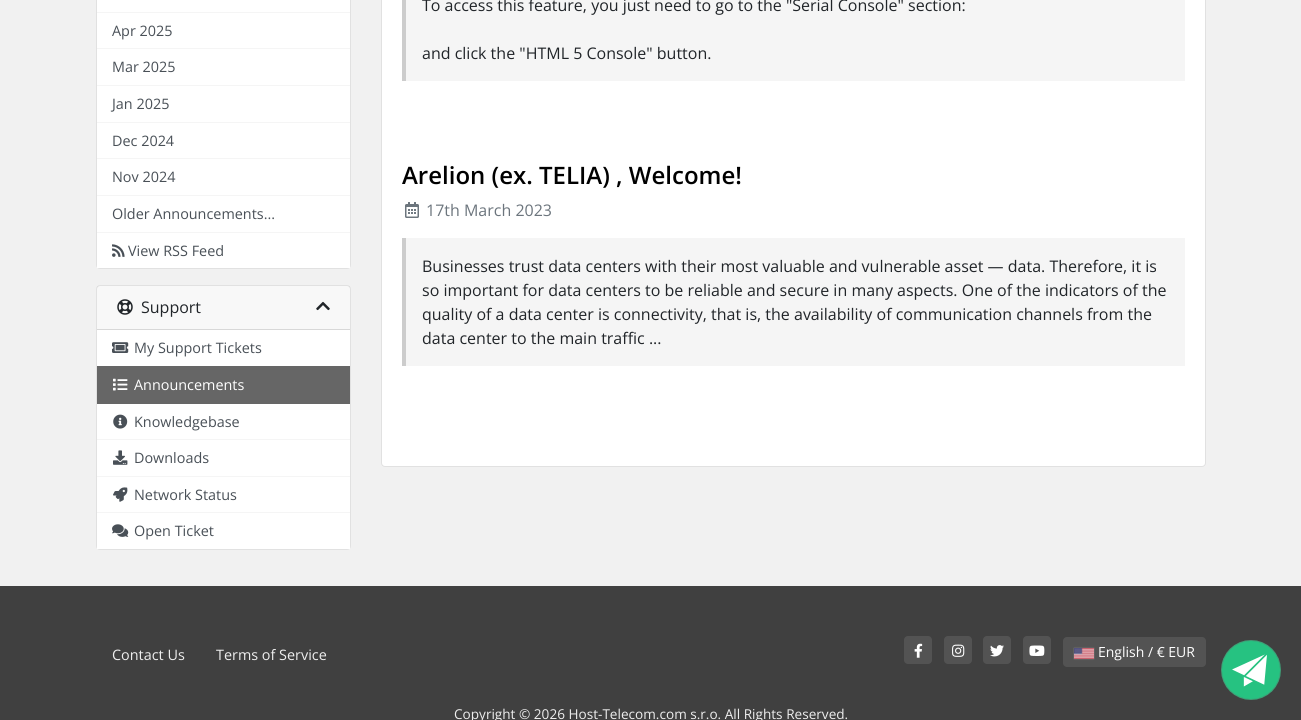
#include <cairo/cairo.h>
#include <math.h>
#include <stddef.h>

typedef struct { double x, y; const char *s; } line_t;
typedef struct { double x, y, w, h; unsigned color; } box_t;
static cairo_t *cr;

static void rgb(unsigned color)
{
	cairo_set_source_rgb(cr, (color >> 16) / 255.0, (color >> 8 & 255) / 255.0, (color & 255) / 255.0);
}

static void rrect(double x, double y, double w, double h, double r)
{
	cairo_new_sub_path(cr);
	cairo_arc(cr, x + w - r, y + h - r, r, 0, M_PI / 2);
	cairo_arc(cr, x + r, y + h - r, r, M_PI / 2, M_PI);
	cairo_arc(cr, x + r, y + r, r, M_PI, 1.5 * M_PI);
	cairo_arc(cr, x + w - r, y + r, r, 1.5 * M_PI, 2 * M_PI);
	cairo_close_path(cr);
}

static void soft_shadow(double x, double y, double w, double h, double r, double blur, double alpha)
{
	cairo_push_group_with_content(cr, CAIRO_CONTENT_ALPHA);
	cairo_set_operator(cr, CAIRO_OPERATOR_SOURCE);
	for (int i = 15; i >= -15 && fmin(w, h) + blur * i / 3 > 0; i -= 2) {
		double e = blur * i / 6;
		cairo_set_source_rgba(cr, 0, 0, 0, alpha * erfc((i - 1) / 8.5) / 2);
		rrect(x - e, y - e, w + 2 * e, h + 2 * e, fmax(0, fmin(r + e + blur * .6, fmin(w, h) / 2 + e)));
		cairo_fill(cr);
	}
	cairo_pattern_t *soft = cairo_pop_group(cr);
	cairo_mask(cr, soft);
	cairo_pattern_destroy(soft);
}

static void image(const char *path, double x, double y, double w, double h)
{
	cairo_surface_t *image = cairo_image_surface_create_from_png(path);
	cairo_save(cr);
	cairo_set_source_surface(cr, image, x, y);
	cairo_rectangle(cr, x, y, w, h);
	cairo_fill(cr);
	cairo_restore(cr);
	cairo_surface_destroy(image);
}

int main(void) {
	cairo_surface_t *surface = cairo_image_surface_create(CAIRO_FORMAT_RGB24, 1301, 720);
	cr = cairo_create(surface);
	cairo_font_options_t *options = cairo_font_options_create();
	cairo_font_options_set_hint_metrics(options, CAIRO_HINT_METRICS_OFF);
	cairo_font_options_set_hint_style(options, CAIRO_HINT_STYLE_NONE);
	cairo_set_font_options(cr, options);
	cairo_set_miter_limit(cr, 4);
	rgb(0xf1f1f1);
	cairo_paint(cr);
	rgb(0xffffff);
	rrect(96, -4, 255, 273, 4);
	cairo_fill(cr);
	rrect(96.5, -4.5, 254, 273, 3.5);
	cairo_set_source_rgba(cr, 0, 0, 0, 0.12);
	cairo_set_line_width(cr, 1);
	cairo_stroke(cr);
	{
		static const box_t items[] = {
			{97, 12, 253, 1, 0xf5f5f5},
			{97, 48, 253, 1, 0xf5f5f5},
			{97, 85, 253, 1, 0xf5f5f5},
			{97, 122, 253, 1, 0xf5f5f5},
			{97, 158, 253, 1, 0xf5f5f5},
			{97, 195, 253, 1, 0xf5f5f5},
			{97, 232, 253, 1, 0xf5f5f5},
			{97, 265, 253, 3, 0xffffff},
		};
		for (size_t i = 0; i < sizeof items / sizeof *items; i++) {
			rgb(items[i].color);
			cairo_rectangle(cr, items[i].x, items[i].y, items[i].w, items[i].h);
			cairo_fill(cr);
		}
	}
	image("img/1.png", 112, 244, 13, 13);
	rrect(96, 285, 255, 265, 4);
	cairo_fill(cr);
	rrect(96.5, 285.5, 254, 264, 3.5);
	cairo_set_source_rgba(cr, 0, 0, 0, 0.12);
	cairo_stroke(cr);
	cairo_set_source_rgba(cr, 0, 0, 0, 0.03);
	cairo_rectangle(cr, 97, 286, 253, 43);
	cairo_fill(cr);
	rgb(0xd8d8d8);
	cairo_rectangle(cr, 97, 329, 253, 1);
	cairo_fill(cr);
	image("img/2.png", 117, 299, 16, 16);
	image("img/3.png", 316, 301, 14, 10);
	image("img/4.png", 112, 342, 17, 11);
	rgb(0x666666);
	cairo_rectangle(cr, 97, 366, 253, 38);
	cairo_fill(cr);
	image("img/5.png", 113, 378, 15, 13);
	rgb(0xf5f5f5);
	cairo_rectangle(cr, 97, 439, 253, 1);
	cairo_fill(cr);
	image("img/6.png", 113, 414, 15, 15);
	cairo_rectangle(cr, 97, 476, 253, 1);
	cairo_fill(cr);
	image("img/7.png", 113, 450, 15, 15);
	cairo_rectangle(cr, 97, 512, 253, 1);
	cairo_fill(cr);
	image("img/8.png", 113, 487, 15, 15);
	rgb(0xffffff);
	cairo_rectangle(cr, 97, 546, 253, 3);
	cairo_fill(cr);
	image("img/9.png", 112, 524, 17, 13);
	rrect(381, -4, 825, 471, 4);
	cairo_fill(cr);
	rrect(381.5, -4.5, 824, 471, 3.5);
	cairo_set_source_rgba(cr, 0, 0, 0, 0.12);
	cairo_stroke(cr);
	rgb(0xf5f5f5);
	cairo_rectangle(cr, 406, 0, 779, 81);
	cairo_fill(cr);
	rgb(0xcccccc);
	cairo_rectangle(cr, 402, 0, 4, 81);
	cairo_fill(cr);
	image("img/10.png", 405, 202, 14, 16);
	{
		static const box_t items[] = {
			{406, 238, 779, 128, 0xf5f5f5},
			{402, 238, 4, 128, 0xcccccc},
			{0, 586, 1301, 134, 0x404040},
		};
		for (size_t i = 0; i < sizeof items / sizeof *items; i++) {
			rgb(items[i].color);
			cairo_rectangle(cr, items[i].x, items[i].y, items[i].w, items[i].h);
			cairo_fill(cr);
		}
	}
	rgb(0x535353);
	rrect(904, 636, 28, 28, 4);
	cairo_fill(cr);
	image("img/11.png", 914, 643, 9, 15);
	rrect(944, 636, 28, 28, 4);
	cairo_fill(cr);
	image("img/12.png", 952, 644, 13, 13);
	rrect(983, 636, 28, 28, 4);
	cairo_fill(cr);
	image("img/13.png", 990, 645, 14, 12);
	rrect(1023, 636, 28, 28, 4);
	cairo_fill(cr);
	image("img/14.png", 1029, 645, 16, 11);
	rrect(1063, 637, 143, 30, 4);
	cairo_fill(cr);
	rgb(0x888888);
	soft_shadow(1074, 648, 20, 11, 0, 0.5, 1);
	image("img/15.png", 1074, 648, 20, 11);
	image("img/16.png", 1221, 640, 60, 60);
	cairo_select_font_face(cr, "Open Sans", CAIRO_FONT_SLANT_NORMAL, CAIRO_FONT_WEIGHT_NORMAL);
	cairo_set_font_size(cr, 14.4);
	rgb(0x495057);
	{
		static const line_t items[] = {
			{112, 36, "Apr 2025"},
			{112, 72, "Mar 2025"},
			{112, 109, "Jan 2025"},
			{112, 146, "Dec 2024"},
			{112, 182, "Nov 2024"},
			{112, 219, "Older Announcements..."},
			{128, 256, "View RSS Feed"},
		};
		for (size_t i = 0; i < sizeof items / sizeof *items; i++) {
			cairo_move_to(cr, items[i].x, items[i].y);
			cairo_show_text(cr, items[i].s);
		}
	}
	cairo_set_font_size(cr, 16);
	rgb(0x212529);
	cairo_move_to(cr, 141, 313);
	cairo_show_text(cr, "Support");
	cairo_set_font_size(cr, 14.4);
	rgb(0x495057);
	cairo_move_to(cr, 134, 353);
	cairo_show_text(cr, "My Support Tickets");
	rgb(0xffffff);
	cairo_move_to(cr, 134, 390);
	cairo_show_text(cr, "Announcements");
	rgb(0x495057);
	{
		static const line_t items[] = {
			{134, 427, "Knowledgebase"},
			{134, 463, "Downloads"},
			{134, 500, "Network Status"},
			{134, 536, "Open Ticket"},
		};
		for (size_t i = 0; i < sizeof items / sizeof *items; i++) {
			cairo_move_to(cr, items[i].x, items[i].y);
			cairo_show_text(cr, items[i].s);
		}
	}
	cairo_set_font_size(cr, 16);
	rgb(0x212529);
	cairo_move_to(cr, 422, 11);
	cairo_show_text(cr, "To access this feature, you just need to go to the \"Serial Console\" section:");
	cairo_move_to(cr, 422, 59);
	cairo_show_text(cr, "and click the \"HTML 5 Console\" button.");
	cairo_select_font_face(cr, "Open Sans SemiBold", CAIRO_FONT_SLANT_NORMAL, CAIRO_FONT_WEIGHT_NORMAL);
	cairo_set_font_size(cr, 24);
	rgb(0x000000);
	cairo_move_to(cr, 402, 184);
	cairo_show_text(cr, "Arelion (ex. TELIA) , Welcome!");
	cairo_select_font_face(cr, "Open Sans", CAIRO_FONT_SLANT_NORMAL, CAIRO_FONT_WEIGHT_NORMAL);
	cairo_set_font_size(cr, 16);
	rgb(0x6c757d);
	cairo_move_to(cr, 426, 216);
	cairo_show_text(cr, "17th March 2023");
	rgb(0x212529);
	{
		static const line_t items[] = {
			{422, 272, "Businesses trust data centers with their most valuable and vulnerable asset — data. Therefore, it is"},
			{422, 296, "so important for data centers to be reliable and secure in many aspects. One of the indicators of the"},
			{422, 320, "quality of a data center is connectivity, that is, the availability of communication channels from the"},
			{422, 344, "data center to the main traffic ..."},
		};
		for (size_t i = 0; i < sizeof items / sizeof *items; i++) {
			cairo_move_to(cr, items[i].x, items[i].y);
			cairo_show_text(cr, items[i].s);
		}
	}
	cairo_set_font_size(cr, 14.4);
	rgb(0xeeeeee);
	cairo_move_to(cr, 112, 660);
	cairo_show_text(cr, "Contact Us");
	cairo_move_to(cr, 216, 660);
	cairo_show_text(cr, "Terms of Service");
	cairo_set_font_size(cr, 14);
	rgb(0xffffff);
	cairo_move_to(cr, 1098, 657);
	cairo_show_text(cr, "English / € EUR");
	cairo_set_font_size(cr, 13.6);
	rgb(0xeeeeee);
	cairo_move_to(cr, 454, 719);
	cairo_show_text(cr, "Copyright © 2026 Host-Telecom.com s.r.o. All Rights Reserved.");
	cairo_surface_write_to_png(surface, "page.png");
	cairo_font_options_destroy(options);
	cairo_destroy(cr);
	cairo_surface_destroy(surface);
	return 0;
}
